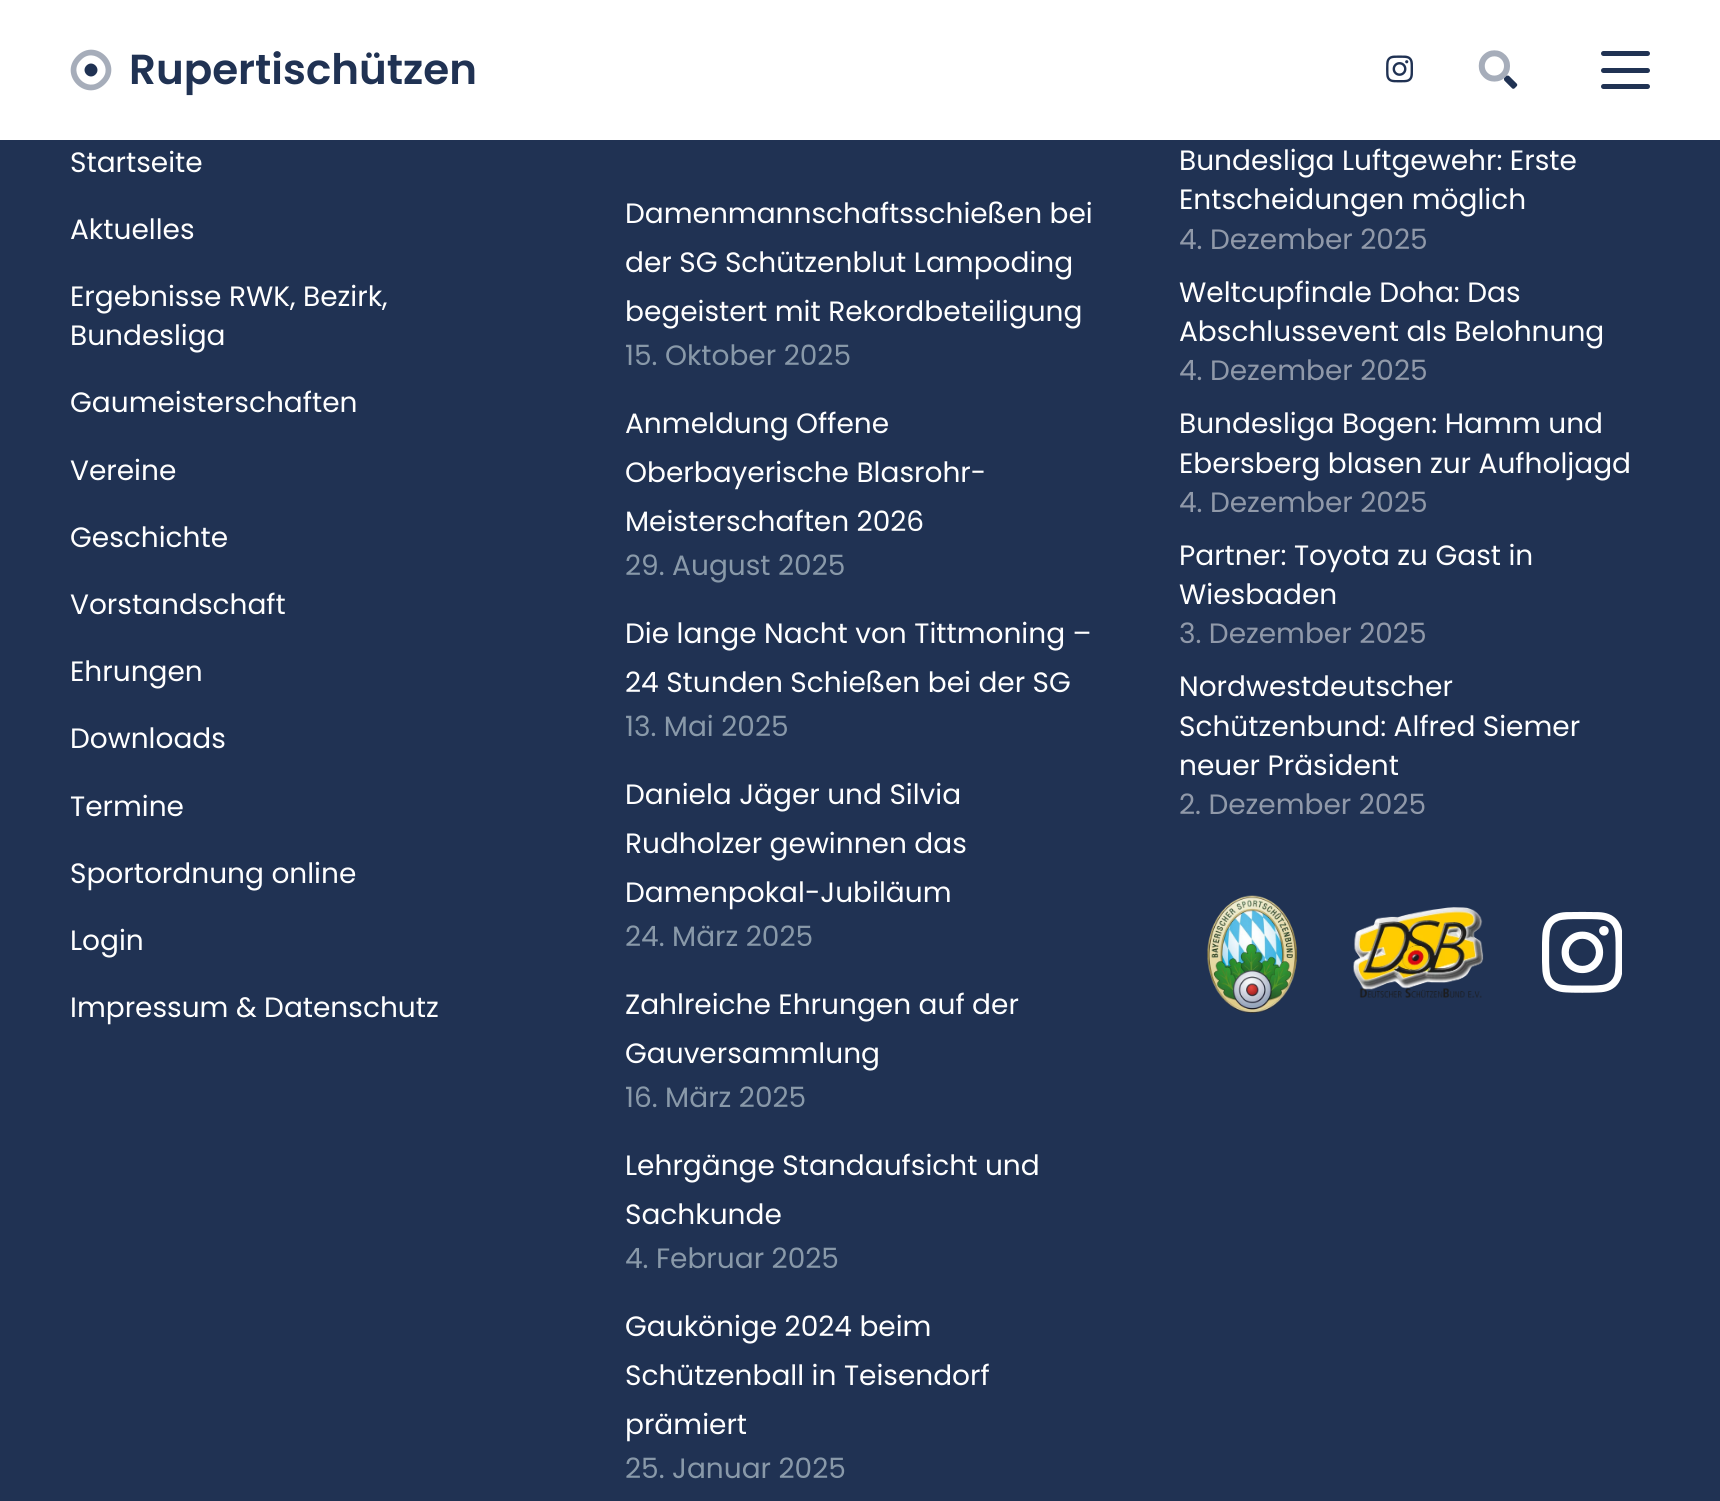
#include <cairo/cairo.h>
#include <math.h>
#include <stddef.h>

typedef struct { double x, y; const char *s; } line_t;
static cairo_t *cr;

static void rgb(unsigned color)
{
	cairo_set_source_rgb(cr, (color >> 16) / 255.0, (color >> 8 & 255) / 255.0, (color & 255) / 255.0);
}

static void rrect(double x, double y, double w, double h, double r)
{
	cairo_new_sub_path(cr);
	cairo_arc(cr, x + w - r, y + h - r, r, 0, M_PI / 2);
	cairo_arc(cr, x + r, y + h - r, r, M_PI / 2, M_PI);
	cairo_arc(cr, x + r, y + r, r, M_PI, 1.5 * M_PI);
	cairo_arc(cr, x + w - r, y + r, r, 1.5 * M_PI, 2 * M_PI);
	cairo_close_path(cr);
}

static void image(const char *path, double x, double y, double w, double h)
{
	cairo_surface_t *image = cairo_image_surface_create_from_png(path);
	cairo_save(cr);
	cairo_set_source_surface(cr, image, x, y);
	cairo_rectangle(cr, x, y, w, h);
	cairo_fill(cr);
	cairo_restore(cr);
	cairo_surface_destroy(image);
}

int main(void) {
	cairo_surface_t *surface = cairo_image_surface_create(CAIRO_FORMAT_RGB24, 1720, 1501);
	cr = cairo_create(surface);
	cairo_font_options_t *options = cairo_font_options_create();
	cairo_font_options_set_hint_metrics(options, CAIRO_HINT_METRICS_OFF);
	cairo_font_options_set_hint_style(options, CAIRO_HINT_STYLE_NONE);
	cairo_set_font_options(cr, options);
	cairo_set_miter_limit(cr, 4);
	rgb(0x203253);
	cairo_paint(cr);
	rgb(0xffffff);
	cairo_rectangle(cr, 0, 0, 1720, 140);
	cairo_fill(cr);
	rgb(0x203253);
	cairo_new_path(cr);
	cairo_move_to(cr, 95.5, 74.5);
	cairo_curve_to(cr, 89.5, 80.5, 80.5, 71.5, 86.5, 65.5);
	cairo_curve_to(cr, 92.5, 59.5, 101.5, 68.5, 95.5, 74.5);
	cairo_close_path(cr);
	cairo_fill(cr);
	rgb(0xa6adba);
	cairo_new_path(cr);
	cairo_move_to(cr, 77, 56);
	cairo_curve_to(cr, 96, 37, 124, 65, 105, 84);
	cairo_curve_to(cr, 86, 103, 58, 75, 77, 56);
	cairo_close_path(cr);
	cairo_move_to(cr, 101, 80);
	cairo_curve_to(cr, 115, 67, 94, 46, 81, 60);
	cairo_curve_to(cr, 67, 73, 88, 94, 101, 80);
	cairo_close_path(cr);
	cairo_fill(cr);
	image("img/1.png", 1386, 55, 27, 28);
	image("img/3.png", 1504, 75, 14, 14);
	image("img/2.png", 1478, 50, 32, 32);
	rgb(0x203253);
	rrect(1601, 68, 49, 5, 2.5);
	cairo_fill(cr);
	rrect(1601, 51, 49, 5, 2.5);
	cairo_fill(cr);
	rrect(1601, 84, 49, 5, 2.5);
	cairo_fill(cr);
	image("img/4.png", 1207, 895, 90, 118);
	image("img/5.png", 1353, 907, 131, 91);
	image("img/6.png", 1542, 911, 80, 82);
	cairo_select_font_face(cr, "Poppins SemiBold", CAIRO_FONT_SLANT_NORMAL, CAIRO_FONT_WEIGHT_NORMAL);
	cairo_set_font_size(cr, 42);
	cairo_move_to(cr, 129, 84);
	cairo_show_text(cr, "Rupertischützen");
	cairo_select_font_face(cr, "Poppins", CAIRO_FONT_SLANT_NORMAL, CAIRO_FONT_WEIGHT_NORMAL);
	cairo_set_font_size(cr, 28);
	rgb(0xffffff);
	{
		static const line_t items[] = {
			{70, 172, "Startseite"},
			{70, 239, "Aktuelles"},
			{70, 306, "Ergebnisse RWK, Bezirk,"},
			{70, 345, "Bundesliga"},
			{70, 412, "Gaumeisterschaften"},
			{70, 480, "Vereine"},
			{70, 547, "Geschichte"},
			{70, 614, "Vorstandschaft"},
			{70, 681, "Ehrungen"},
			{70, 748, "Downloads"},
			{70, 816, "Termine"},
			{70, 883, "Sportordnung online"},
			{70, 950, "Login"},
			{70, 1017, "Impressum & Datenschutz"},
			{625, 223, "Damenmannschaftsschießen bei"},
			{625, 272, "der SG Schützenblut Lampoding"},
			{625, 321, "begeistert mit Rekordbeteiligung"},
		};
		for (size_t i = 0; i < sizeof items / sizeof *items; i++) {
			cairo_move_to(cr, items[i].x, items[i].y);
			cairo_show_text(cr, items[i].s);
		}
	}
	rgb(0x8999a9);
	cairo_move_to(cr, 625, 365);
	cairo_show_text(cr, "15. Oktober 2025");
	rgb(0xffffff);
	{
		static const line_t items[] = {
			{625, 433, "Anmeldung Offene"},
			{625, 482, "Oberbayerische Blasrohr-"},
			{625, 531, "Meisterschaften 2026"},
		};
		for (size_t i = 0; i < sizeof items / sizeof *items; i++) {
			cairo_move_to(cr, items[i].x, items[i].y);
			cairo_show_text(cr, items[i].s);
		}
	}
	rgb(0x8999a9);
	cairo_move_to(cr, 625, 575);
	cairo_show_text(cr, "29. August 2025");
	rgb(0xffffff);
	cairo_move_to(cr, 625, 643);
	cairo_show_text(cr, "Die lange Nacht von Tittmoning –");
	cairo_move_to(cr, 625, 692);
	cairo_show_text(cr, "24 Stunden Schießen bei der SG");
	rgb(0x8999a9);
	cairo_move_to(cr, 625, 736);
	cairo_show_text(cr, "13. Mai 2025");
	rgb(0xffffff);
	{
		static const line_t items[] = {
			{625, 804, "Daniela Jäger und Silvia"},
			{625, 853, "Rudholzer gewinnen das"},
			{625, 902, "Damenpokal-Jubiläum"},
		};
		for (size_t i = 0; i < sizeof items / sizeof *items; i++) {
			cairo_move_to(cr, items[i].x, items[i].y);
			cairo_show_text(cr, items[i].s);
		}
	}
	rgb(0x8999a9);
	cairo_move_to(cr, 625, 946);
	cairo_show_text(cr, "24. März 2025");
	rgb(0xffffff);
	cairo_move_to(cr, 625, 1014);
	cairo_show_text(cr, "Zahlreiche Ehrungen auf der");
	cairo_move_to(cr, 625, 1063);
	cairo_show_text(cr, "Gauversammlung");
	rgb(0x8999a9);
	cairo_move_to(cr, 625, 1107);
	cairo_show_text(cr, "16. März 2025");
	rgb(0xffffff);
	cairo_move_to(cr, 625, 1175);
	cairo_show_text(cr, "Lehrgänge Standaufsicht und");
	cairo_move_to(cr, 625, 1224);
	cairo_show_text(cr, "Sachkunde");
	rgb(0x8999a9);
	cairo_move_to(cr, 625, 1268);
	cairo_show_text(cr, "4. Februar 2025");
	rgb(0xffffff);
	{
		static const line_t items[] = {
			{625, 1336, "Gaukönige 2024 beim"},
			{625, 1385, "Schützenball in Teisendorf"},
			{625, 1434, "prämiert"},
		};
		for (size_t i = 0; i < sizeof items / sizeof *items; i++) {
			cairo_move_to(cr, items[i].x, items[i].y);
			cairo_show_text(cr, items[i].s);
		}
	}
	rgb(0x8999a9);
	cairo_move_to(cr, 625, 1478);
	cairo_show_text(cr, "25. Januar 2025");
	rgb(0xffffff);
	cairo_move_to(cr, 1179, 170);
	cairo_show_text(cr, "Bundesliga Luftgewehr: Erste");
	cairo_move_to(cr, 1179, 209);
	cairo_show_text(cr, "Entscheidungen möglich");
	rgb(0x9099a9);
	cairo_move_to(cr, 1179, 249);
	cairo_show_text(cr, "4. Dezember 2025");
	rgb(0xffffff);
	cairo_move_to(cr, 1179, 302);
	cairo_show_text(cr, "Weltcupfinale Doha: Das");
	cairo_move_to(cr, 1179, 341);
	cairo_show_text(cr, "Abschlussevent als Belohnung");
	rgb(0x9099a9);
	cairo_move_to(cr, 1179, 380);
	cairo_show_text(cr, "4. Dezember 2025");
	rgb(0xffffff);
	cairo_move_to(cr, 1179, 433);
	cairo_show_text(cr, "Bundesliga Bogen: Hamm und");
	cairo_move_to(cr, 1179, 473);
	cairo_show_text(cr, "Ebersberg blasen zur Aufholjagd");
	rgb(0x9099a9);
	cairo_move_to(cr, 1179, 512);
	cairo_show_text(cr, "4. Dezember 2025");
	rgb(0xffffff);
	cairo_move_to(cr, 1179, 565);
	cairo_show_text(cr, "Partner: Toyota zu Gast in");
	cairo_move_to(cr, 1179, 604);
	cairo_show_text(cr, "Wiesbaden");
	rgb(0x9099a9);
	cairo_move_to(cr, 1179, 643);
	cairo_show_text(cr, "3. Dezember 2025");
	rgb(0xffffff);
	{
		static const line_t items[] = {
			{1179, 696, "Nordwestdeutscher"},
			{1179, 736, "Schützenbund: Alfred Siemer"},
			{1179, 775, "neuer Präsident"},
		};
		for (size_t i = 0; i < sizeof items / sizeof *items; i++) {
			cairo_move_to(cr, items[i].x, items[i].y);
			cairo_show_text(cr, items[i].s);
		}
	}
	rgb(0x9099a9);
	cairo_move_to(cr, 1179, 814);
	cairo_show_text(cr, "2. Dezember 2025");
	cairo_surface_write_to_png(surface, "page.png");
	cairo_font_options_destroy(options);
	cairo_destroy(cr);
	cairo_surface_destroy(surface);
	return 0;
}
